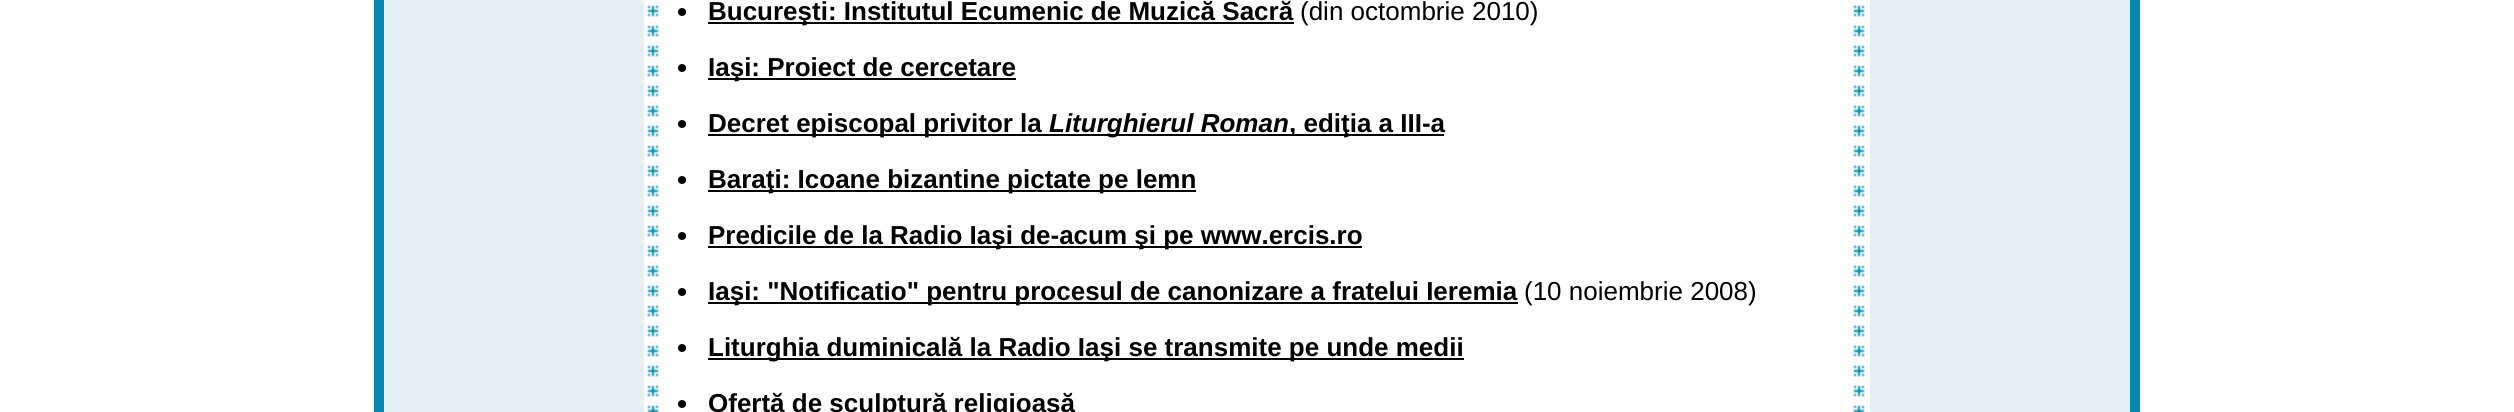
#include <cairo/cairo.h>
#include <math.h>
#include <stddef.h>

typedef struct { double x, y; const char *s; } line_t;
static cairo_t *cr;

static void rgb(unsigned color)
{
	cairo_set_source_rgb(cr, (color >> 16) / 255.0, (color >> 8 & 255) / 255.0, (color & 255) / 255.0);
}

static void image(const char *path, double x, double y, double w, double h)
{
	cairo_surface_t *image = cairo_image_surface_create_from_png(path);
	cairo_save(cr);
	cairo_set_source_surface(cr, image, x, y);
	cairo_rectangle(cr, x, y, w, h);
	cairo_fill(cr);
	cairo_restore(cr);
	cairo_surface_destroy(image);
}

int main(void) {
	cairo_surface_t *surface = cairo_image_surface_create(CAIRO_FORMAT_RGB24, 2514, 412);
	cr = cairo_create(surface);
	cairo_font_options_t *options = cairo_font_options_create();
	cairo_font_options_set_hint_metrics(options, CAIRO_HINT_METRICS_OFF);
	cairo_font_options_set_hint_style(options, CAIRO_HINT_STYLE_NONE);
	cairo_set_font_options(cr, options);
	cairo_set_miter_limit(cr, 4);
	rgb(0xffffff);
	cairo_paint(cr);
	rgb(0x0588ad);
	cairo_rectangle(cr, 374, 0, 10, 412);
	cairo_fill(cr);
	rgb(0xe5eef1);
	cairo_rectangle(cr, 384, 0, 260, 412);
	cairo_fill(cr);
	image("img/1.png", 644, 0, 20, 412);
	rgb(0x000000);
	cairo_arc(cr, 682, 12, 4, 0, 2 * M_PI);
	cairo_fill(cr);
	cairo_rectangle(cr, 708, 22, 586, 2);
	cairo_fill(cr);
	cairo_arc(cr, 682, 68, 4, 0, 2 * M_PI);
	cairo_fill(cr);
	cairo_rectangle(cr, 708, 78, 308, 2);
	cairo_fill(cr);
	cairo_arc(cr, 682, 124, 4, 0, 2 * M_PI);
	cairo_fill(cr);
	cairo_rectangle(cr, 708, 134, 736, 2);
	cairo_fill(cr);
	cairo_arc(cr, 682, 180, 4, 0, 2 * M_PI);
	cairo_fill(cr);
	cairo_rectangle(cr, 708, 190, 488, 2);
	cairo_fill(cr);
	cairo_arc(cr, 682, 236, 4, 0, 2 * M_PI);
	cairo_fill(cr);
	cairo_rectangle(cr, 708, 246, 654, 2);
	cairo_fill(cr);
	cairo_arc(cr, 682, 292, 4, 0, 2 * M_PI);
	cairo_fill(cr);
	cairo_rectangle(cr, 708, 302, 810, 2);
	cairo_fill(cr);
	cairo_arc(cr, 682, 348, 4, 0, 2 * M_PI);
	cairo_fill(cr);
	cairo_rectangle(cr, 708, 358, 756, 2);
	cairo_fill(cr);
	cairo_arc(cr, 682, 404, 4, 0, 2 * M_PI);
	cairo_fill(cr);
	image("img/1.png", 1850, 0, 20, 412);
	rgb(0xe5eef1);
	cairo_rectangle(cr, 1870, 0, 260, 412);
	cairo_fill(cr);
	rgb(0x0588ad);
	cairo_rectangle(cr, 2130, 0, 10, 412);
	cairo_fill(cr);
	cairo_select_font_face(cr, "Liberation Sans", CAIRO_FONT_SLANT_NORMAL, CAIRO_FONT_WEIGHT_BOLD);
	cairo_set_font_size(cr, 26);
	rgb(0x000000);
	cairo_move_to(cr, 708, 20);
	cairo_show_text(cr, "Bucureşti: Institutul Ecumenic de Muzică Sacră");
	cairo_select_font_face(cr, "Liberation Sans", CAIRO_FONT_SLANT_NORMAL, CAIRO_FONT_WEIGHT_NORMAL);
	cairo_move_to(cr, 1300, 20);
	cairo_show_text(cr, "(din octombrie 2010)");
	cairo_select_font_face(cr, "Liberation Sans", CAIRO_FONT_SLANT_NORMAL, CAIRO_FONT_WEIGHT_BOLD);
	cairo_move_to(cr, 708, 76);
	cairo_show_text(cr, "Iaşi: Proiect de cercetare");
	cairo_move_to(cr, 708, 132);
	cairo_show_text(cr, "Decret episcopal privitor la");
	cairo_select_font_face(cr, "Liberation Sans", CAIRO_FONT_SLANT_ITALIC, CAIRO_FONT_WEIGHT_BOLD);
	cairo_move_to(cr, 1049, 132);
	cairo_show_text(cr, "Liturghierul Roman");
	cairo_select_font_face(cr, "Liberation Sans", CAIRO_FONT_SLANT_NORMAL, CAIRO_FONT_WEIGHT_BOLD);
	{
		static const line_t items[] = {
			{1289, 132, ", ediţia a III-a"},
			{708, 188, "Baraţi: Icoane bizantine pictate pe lemn"},
			{708, 244, "Predicile de la Radio Iaşi de-acum şi pe www.ercis.ro"},
			{708, 300, "Iaşi: \"Notificatio\" pentru procesul de canonizare a fratelui Ieremia"},
		};
		for (size_t i = 0; i < sizeof items / sizeof *items; i++) {
			cairo_move_to(cr, items[i].x, items[i].y);
			cairo_show_text(cr, items[i].s);
		}
	}
	cairo_select_font_face(cr, "Liberation Sans", CAIRO_FONT_SLANT_NORMAL, CAIRO_FONT_WEIGHT_NORMAL);
	cairo_move_to(cr, 1524, 300);
	cairo_show_text(cr, "(10 noiembrie 2008)");
	cairo_select_font_face(cr, "Liberation Sans", CAIRO_FONT_SLANT_NORMAL, CAIRO_FONT_WEIGHT_BOLD);
	cairo_move_to(cr, 708, 356);
	cairo_show_text(cr, "Liturghia duminicală la Radio Iaşi se transmite pe unde medii");
	cairo_move_to(cr, 708, 412);
	cairo_show_text(cr, "Ofertă de sculptură religioasă");
	cairo_surface_write_to_png(surface, "page.png");
	cairo_font_options_destroy(options);
	cairo_destroy(cr);
	cairo_surface_destroy(surface);
	return 0;
}
